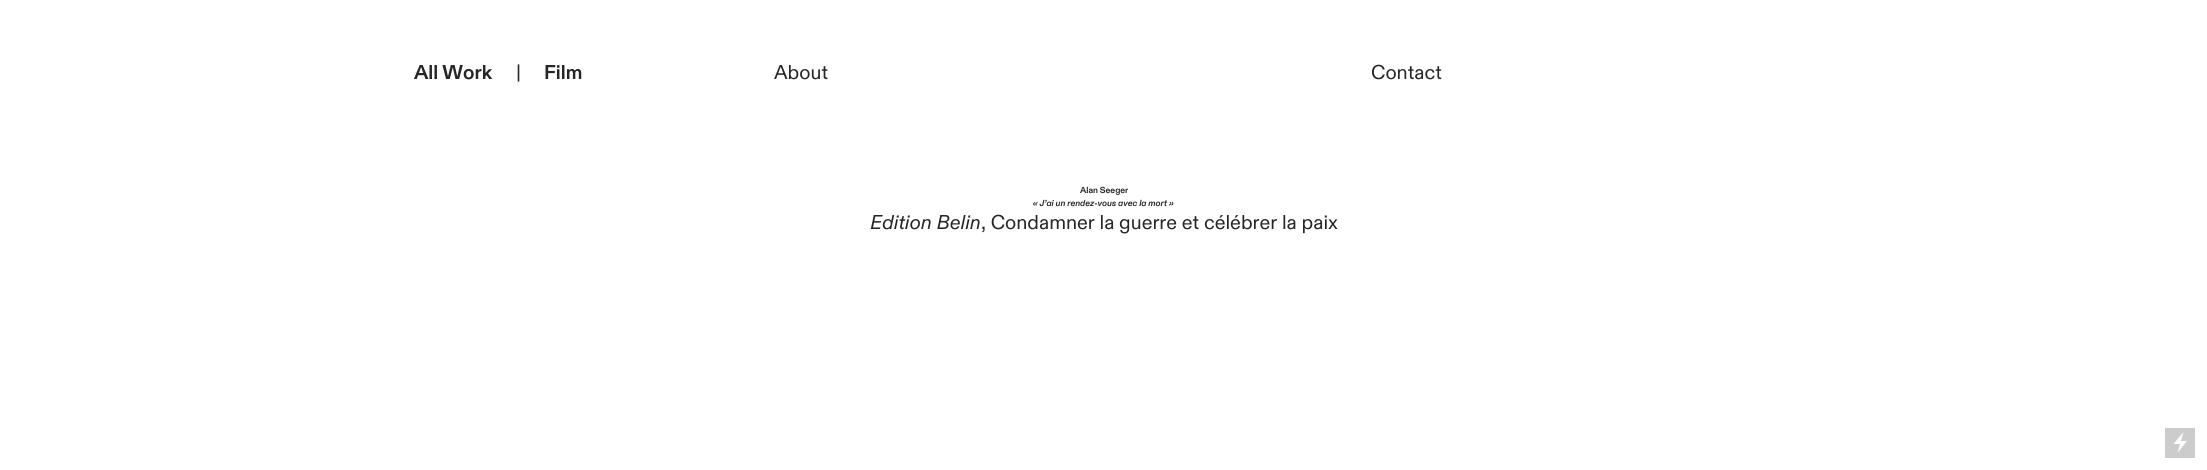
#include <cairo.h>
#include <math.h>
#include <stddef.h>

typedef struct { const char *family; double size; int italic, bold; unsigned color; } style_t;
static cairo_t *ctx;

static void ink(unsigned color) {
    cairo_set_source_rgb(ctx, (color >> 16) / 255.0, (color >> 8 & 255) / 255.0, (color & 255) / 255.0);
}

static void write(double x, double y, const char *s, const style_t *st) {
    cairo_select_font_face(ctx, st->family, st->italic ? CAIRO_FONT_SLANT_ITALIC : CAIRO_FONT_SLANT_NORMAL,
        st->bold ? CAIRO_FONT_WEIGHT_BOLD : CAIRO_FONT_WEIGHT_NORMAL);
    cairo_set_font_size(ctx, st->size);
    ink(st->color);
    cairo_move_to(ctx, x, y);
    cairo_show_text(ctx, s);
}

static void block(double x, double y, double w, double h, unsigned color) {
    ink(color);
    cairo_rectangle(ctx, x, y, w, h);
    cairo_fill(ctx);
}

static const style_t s1 = {"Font", 20, 0, 1, 0x262626};
static const style_t s2 = {"Font", 20, 0, 0, 0x262626};
static const style_t s3 = {"Font", 8.75, 0, 1, 0x262626};
static const style_t s4 = {"Font", 8.75, 1, 1, 0x262626};
static const style_t s5 = {"Font", 20, 1, 0, 0x262626};

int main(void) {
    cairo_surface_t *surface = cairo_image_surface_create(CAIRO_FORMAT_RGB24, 2207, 470);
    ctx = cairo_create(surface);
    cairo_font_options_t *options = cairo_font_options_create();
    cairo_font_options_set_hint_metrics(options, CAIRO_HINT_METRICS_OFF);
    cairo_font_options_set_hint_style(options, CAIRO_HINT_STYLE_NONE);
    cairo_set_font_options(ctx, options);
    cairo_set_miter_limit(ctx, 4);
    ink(0xffffff);
    cairo_paint(ctx);
    write(414, 79, "All Work", &s1);
    write(516, 79, "|", &s2);
    write(544, 79, "Film", &s1);
    write(774, 79, "About", &s2);
    write(1371, 79, "Contact", &s2);
    write(1080, 193, "Alan Seeger", &s3);
    write(1033, 206, "« J’ai un rendez-vous avec la mort »", &s4);
    write(870, 229, "Edition Belin", &s5);
    write(981, 229, ", Condamner la guerre et célébrer la paix", &s2);
    block(2165, 428, 30, 30, 0xcccccc);
    ink(0xffffff);
    cairo_new_path(ctx);
    cairo_move_to(ctx, 2187, 441);
    cairo_line_to(ctx, 2181, 441);
    cairo_line_to(ctx, 2183.5, 432);
    cairo_line_to(ctx, 2173.5, 444);
    cairo_line_to(ctx, 2180, 444);
    cairo_line_to(ctx, 2177.5, 453);
    cairo_close_path(ctx);
    cairo_fill(ctx);
    cairo_surface_write_to_png(surface, "screenshot.png");
    cairo_font_options_destroy(options);
    cairo_destroy(ctx);
    cairo_surface_destroy(surface);
    return 0;
}
